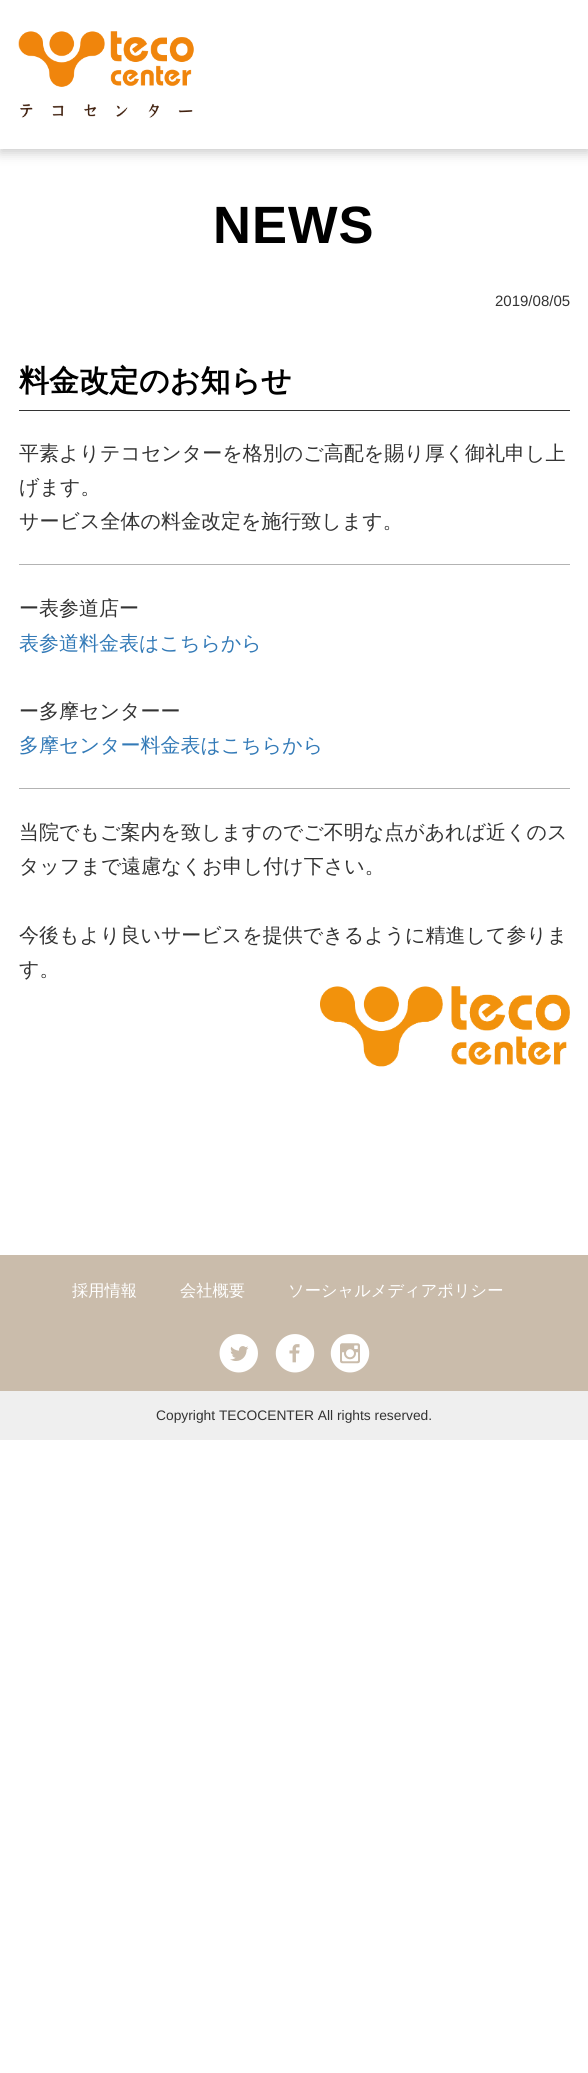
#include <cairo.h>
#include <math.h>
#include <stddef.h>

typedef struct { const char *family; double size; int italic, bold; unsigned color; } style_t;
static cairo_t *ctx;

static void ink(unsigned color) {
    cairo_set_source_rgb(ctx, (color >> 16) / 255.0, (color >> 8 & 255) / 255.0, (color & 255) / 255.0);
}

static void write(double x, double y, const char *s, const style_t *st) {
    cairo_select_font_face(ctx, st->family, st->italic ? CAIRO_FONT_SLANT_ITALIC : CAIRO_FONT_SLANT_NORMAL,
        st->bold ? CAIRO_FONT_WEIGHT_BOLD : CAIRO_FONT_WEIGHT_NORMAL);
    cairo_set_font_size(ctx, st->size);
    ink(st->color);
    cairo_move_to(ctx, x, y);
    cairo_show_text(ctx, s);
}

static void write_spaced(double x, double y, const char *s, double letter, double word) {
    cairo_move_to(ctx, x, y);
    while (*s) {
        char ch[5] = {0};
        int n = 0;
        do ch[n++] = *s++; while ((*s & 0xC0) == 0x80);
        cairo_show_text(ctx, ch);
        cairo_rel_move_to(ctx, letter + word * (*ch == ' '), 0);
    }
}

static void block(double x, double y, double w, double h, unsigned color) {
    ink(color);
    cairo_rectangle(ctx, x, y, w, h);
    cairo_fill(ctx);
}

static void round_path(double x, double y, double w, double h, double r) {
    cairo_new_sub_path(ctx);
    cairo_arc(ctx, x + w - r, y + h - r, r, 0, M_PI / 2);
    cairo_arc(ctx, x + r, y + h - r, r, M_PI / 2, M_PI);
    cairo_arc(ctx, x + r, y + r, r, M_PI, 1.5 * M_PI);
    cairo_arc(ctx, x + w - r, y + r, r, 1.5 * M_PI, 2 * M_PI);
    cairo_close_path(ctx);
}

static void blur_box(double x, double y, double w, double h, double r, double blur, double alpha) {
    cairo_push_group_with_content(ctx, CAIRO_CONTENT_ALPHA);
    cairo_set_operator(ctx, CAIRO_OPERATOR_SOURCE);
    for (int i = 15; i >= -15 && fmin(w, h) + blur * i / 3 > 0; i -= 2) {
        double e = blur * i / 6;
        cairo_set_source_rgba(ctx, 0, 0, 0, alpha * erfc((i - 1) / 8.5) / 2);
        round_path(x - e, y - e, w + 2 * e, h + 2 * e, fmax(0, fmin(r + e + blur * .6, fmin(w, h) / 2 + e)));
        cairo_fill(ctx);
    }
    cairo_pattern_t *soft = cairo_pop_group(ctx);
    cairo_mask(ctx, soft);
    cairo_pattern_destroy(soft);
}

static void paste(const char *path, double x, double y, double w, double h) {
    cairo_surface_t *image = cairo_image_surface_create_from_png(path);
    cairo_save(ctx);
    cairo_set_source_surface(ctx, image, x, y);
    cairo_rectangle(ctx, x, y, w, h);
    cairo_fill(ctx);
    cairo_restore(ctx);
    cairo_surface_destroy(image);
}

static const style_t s1 = {"Liberation Sans", 15, 0, 0, 0x333333};
static const style_t s2 = {"WenQuanYi Zen Hei", 30, 0, 1, 0x000000};
static const style_t s3 = {"WenQuanYi Zen Hei Medium", 20, 0, 0, 0x333333};
static const style_t s4 = {"WenQuanYi Zen Hei Medium", 20, 0, 0, 0x337ab7};
static const style_t s5 = {"WenQuanYi Zen Hei Medium", 16.25, 0, 0, 0xffffff};
static const style_t s6 = {"Liberation Sans", 13.8, 0, 0, 0x333333};

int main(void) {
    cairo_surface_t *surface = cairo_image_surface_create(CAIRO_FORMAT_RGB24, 588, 2073);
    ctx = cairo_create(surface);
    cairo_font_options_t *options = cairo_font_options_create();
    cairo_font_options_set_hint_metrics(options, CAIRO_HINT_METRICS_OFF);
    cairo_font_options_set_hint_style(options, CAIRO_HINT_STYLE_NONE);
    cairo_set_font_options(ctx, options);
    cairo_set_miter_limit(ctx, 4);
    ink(0xffffff);
    cairo_paint(ctx);
    ink(0x000000);
    blur_box(0, 4, 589, 149, 0, 6, 0.2);
    block(0, 0, 588, 149, 0xffffff);
    paste("pic1.png", 18, 31, 176, 87);
    cairo_select_font_face(ctx, "Liberation Sans", CAIRO_FONT_SLANT_NORMAL, CAIRO_FONT_WEIGHT_BOLD);
    cairo_set_font_size(ctx, 52.5);
    ink(0x000000);
    write_spaced(213, 243, "NEWS", 1, 0);
    write(495, 306, "2019/08/05", &s1);
    block(19, 410, 551, 1, 0x333333);
    write(19, 391, "料金改定のお知らせ", &s2);
    write(19, 460, "平素よりテコセンターを格別のご高配を賜り厚く御礼申し上", &s3);
    write(19, 494, "げます。", &s3);
    write(19, 528, "サービス全体の料金改定を施行致します。", &s3);
    block(19, 564, 551, 1, 0xb3b3b3);
    write(19, 615, "ー表参道店ー", &s3);
    write(19, 650, "表参道料金表はこちらから", &s4);
    write(19, 718, "ー多摩センターー", &s3);
    write(19, 752, "多摩センター料金表はこちらから", &s4);
    block(19, 788, 551, 1, 0xb3b3b3);
    write(19, 839, "当院でもご案内を致しますのでご不明な点があれば近くのス", &s3);
    write(19, 873, "タッフまで遠慮なくお申し付け下さい。", &s3);
    write(19, 942, "今後もより良いサービスを提供できるように精進して参りま", &s3);
    write(19, 976, "す。", &s3);
    paste("pic2.png", 320, 986, 250, 81);
    block(0, 1255, 588, 136, 0xcabcab);
    write(72, 1296, "採用情報", &s5);
    write(180, 1296, "会社概要", &s5);
    write(288, 1296, "ソーシャルメディアポリシー", &s5);
    paste("pic3.png", 219, 1334, 39, 39);
    paste("pic4.png", 275, 1334, 40, 39);
    paste("pic5.png", 330, 1334, 40, 39);
    block(0, 1391, 588, 49, 0xefefef);
    write(156, 1420, "Copyright TECOCENTER All rights reserved.", &s6);
    cairo_surface_write_to_png(surface, "screenshot.png");
    cairo_font_options_destroy(options);
    cairo_destroy(ctx);
    cairo_surface_destroy(surface);
    return 0;
}
